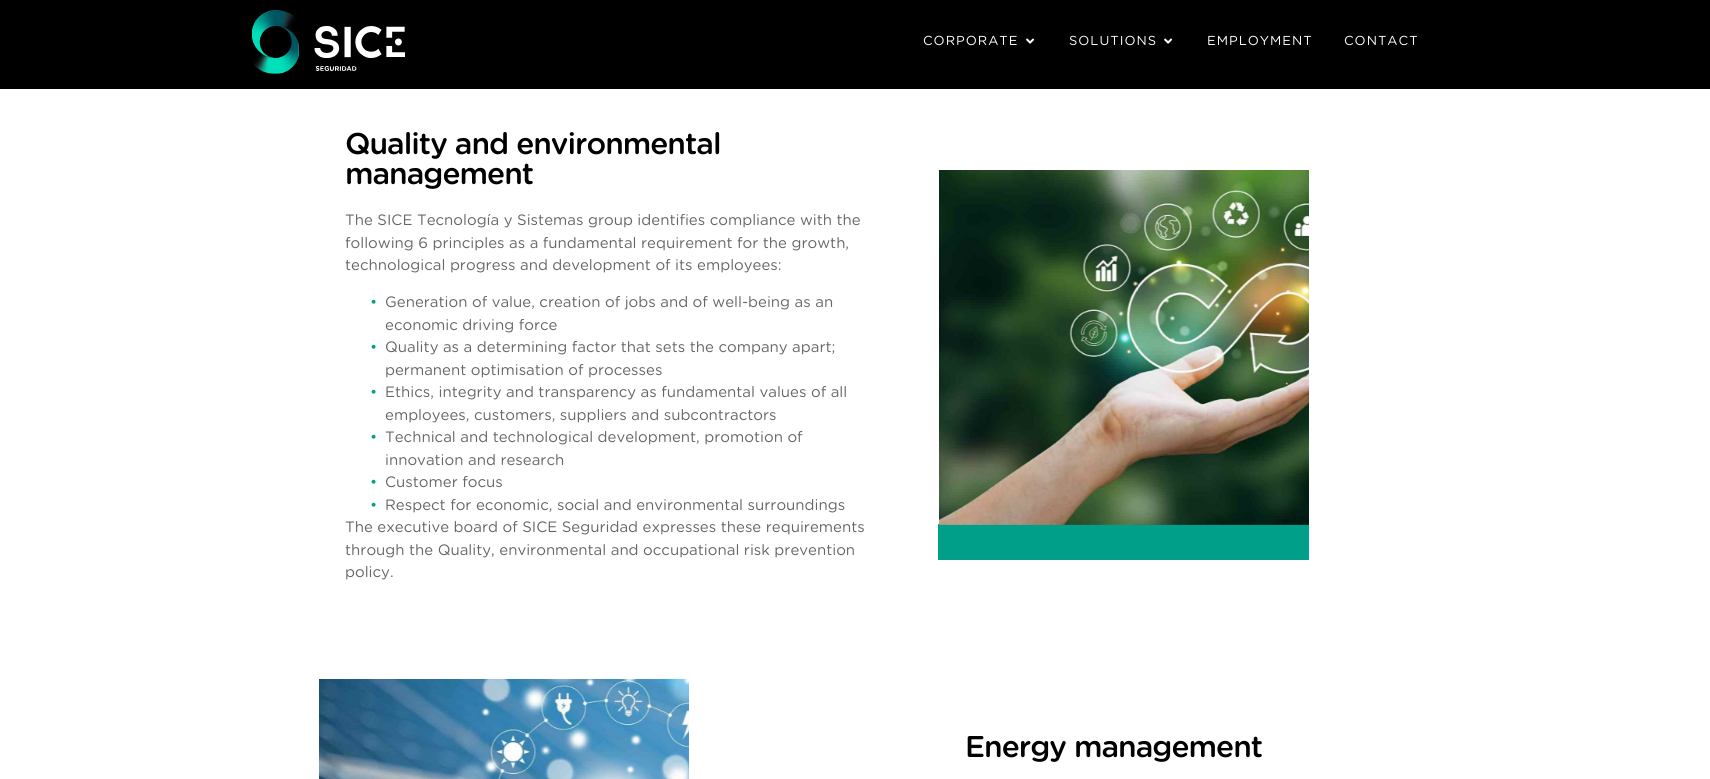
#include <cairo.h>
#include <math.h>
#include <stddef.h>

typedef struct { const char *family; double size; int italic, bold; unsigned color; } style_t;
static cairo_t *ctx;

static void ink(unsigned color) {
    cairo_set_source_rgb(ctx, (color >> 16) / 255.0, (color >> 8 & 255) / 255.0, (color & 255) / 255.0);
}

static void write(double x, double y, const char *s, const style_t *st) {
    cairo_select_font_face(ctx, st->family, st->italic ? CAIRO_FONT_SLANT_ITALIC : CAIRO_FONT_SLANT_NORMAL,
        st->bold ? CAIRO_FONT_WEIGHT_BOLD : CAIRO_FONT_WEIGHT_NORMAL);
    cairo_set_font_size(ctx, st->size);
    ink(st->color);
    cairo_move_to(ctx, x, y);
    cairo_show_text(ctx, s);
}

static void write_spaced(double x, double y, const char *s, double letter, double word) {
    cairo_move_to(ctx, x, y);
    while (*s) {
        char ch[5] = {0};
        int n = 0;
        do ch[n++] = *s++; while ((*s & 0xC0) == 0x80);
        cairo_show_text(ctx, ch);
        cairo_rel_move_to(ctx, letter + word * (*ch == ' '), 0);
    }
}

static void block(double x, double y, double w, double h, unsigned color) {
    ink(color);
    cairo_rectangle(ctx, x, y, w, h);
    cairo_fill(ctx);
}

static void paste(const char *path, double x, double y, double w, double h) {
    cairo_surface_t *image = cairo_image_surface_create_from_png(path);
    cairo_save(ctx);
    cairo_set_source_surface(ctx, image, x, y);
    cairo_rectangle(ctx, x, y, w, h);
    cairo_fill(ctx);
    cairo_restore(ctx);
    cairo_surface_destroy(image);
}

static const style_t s1 = {"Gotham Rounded", 15, 0, 0, 0x666666};
static const style_t s2 = {"Gotham Rounded", 15, 0, 0, 0x009f89};

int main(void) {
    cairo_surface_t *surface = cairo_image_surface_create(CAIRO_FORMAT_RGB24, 1710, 779);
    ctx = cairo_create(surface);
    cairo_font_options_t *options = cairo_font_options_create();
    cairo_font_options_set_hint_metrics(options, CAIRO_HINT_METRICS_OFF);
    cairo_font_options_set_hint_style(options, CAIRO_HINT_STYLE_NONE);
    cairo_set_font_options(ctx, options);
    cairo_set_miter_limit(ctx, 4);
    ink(0xffffff);
    cairo_paint(ctx);
    block(0, 0, 1710, 89, 0x000000);
    paste("pic1.png", 252, 10, 153, 64);
    cairo_select_font_face(ctx, "Gotham Rounded", CAIRO_FONT_SLANT_NORMAL, CAIRO_FONT_WEIGHT_NORMAL);
    cairo_set_font_size(ctx, 13);
    ink(0xffffff);
    write_spaced(923, 45, "CORPORATE", 1, 0);
    paste("pic2.png", 1026, 38, 9, 6);
    write_spaced(1069, 45, "SOLUTIONS", 1, 0);
    paste("pic2.png", 1164, 38, 9, 6);
    write_spaced(1207, 45, "EMPLOYMENT", 1, 0);
    write_spaced(1344, 45, "CONTACT", 1, 0);
    cairo_select_font_face(ctx, "Gotham Rounded Medium", CAIRO_FONT_SLANT_NORMAL, CAIRO_FONT_WEIGHT_NORMAL);
    cairo_set_font_size(ctx, 30);
    ink(0x000000);
    write_spaced(345, 154, "Quality and environmental", -1, 0);
    write_spaced(345, 184, "management", -1, 0);
    write(345, 225, "The SICE Tecnología y Sistemas group identifies compliance with the", &s1);
    write(345, 248, "following 6 principles as a fundamental requirement for the growth,", &s1);
    write(345, 270, "technological progress and development of its employees:", &s1);
    write(370, 307, "•", &s2);
    write(385, 307, "Generation of value, creation of jobs and of well-being as an", &s1);
    write(385, 330, "economic driving force", &s1);
    write(370, 352, "•", &s2);
    write(385, 352, "Quality as a determining factor that sets the company apart;", &s1);
    write(385, 375, "permanent optimisation of processes", &s1);
    write(370, 397, "•", &s2);
    write(385, 397, "Ethics, integrity and transparency as fundamental values of all", &s1);
    write(385, 420, "employees, customers, suppliers and subcontractors", &s1);
    write(370, 442, "•", &s2);
    write(385, 442, "Technical and technological development, promotion of", &s1);
    write(385, 465, "innovation and research", &s1);
    write(370, 487, "•", &s2);
    write(385, 487, "Customer focus", &s1);
    write(370, 510, "•", &s2);
    write(385, 510, "Respect for economic, social and environmental surroundings", &s1);
    write(345, 532, "The executive board of SICE Seguridad expresses these requirements", &s1);
    write(345, 555, "through the Quality, environmental and occupational risk prevention", &s1);
    write(345, 577, "policy.", &s1);
    block(938, 524, 371, 36, 0x009f89);
    paste("pic3.png", 939, 170, 370, 355);
    paste("pic4.png", 319, 679, 370, 100);
    cairo_select_font_face(ctx, "Gotham Rounded Medium", CAIRO_FONT_SLANT_NORMAL, CAIRO_FONT_WEIGHT_NORMAL);
    cairo_set_font_size(ctx, 30);
    ink(0x000000);
    write_spaced(965, 757, "Energy management", -1, 0);
    cairo_surface_write_to_png(surface, "screenshot.png");
    cairo_font_options_destroy(options);
    cairo_destroy(ctx);
    cairo_surface_destroy(surface);
    return 0;
}
